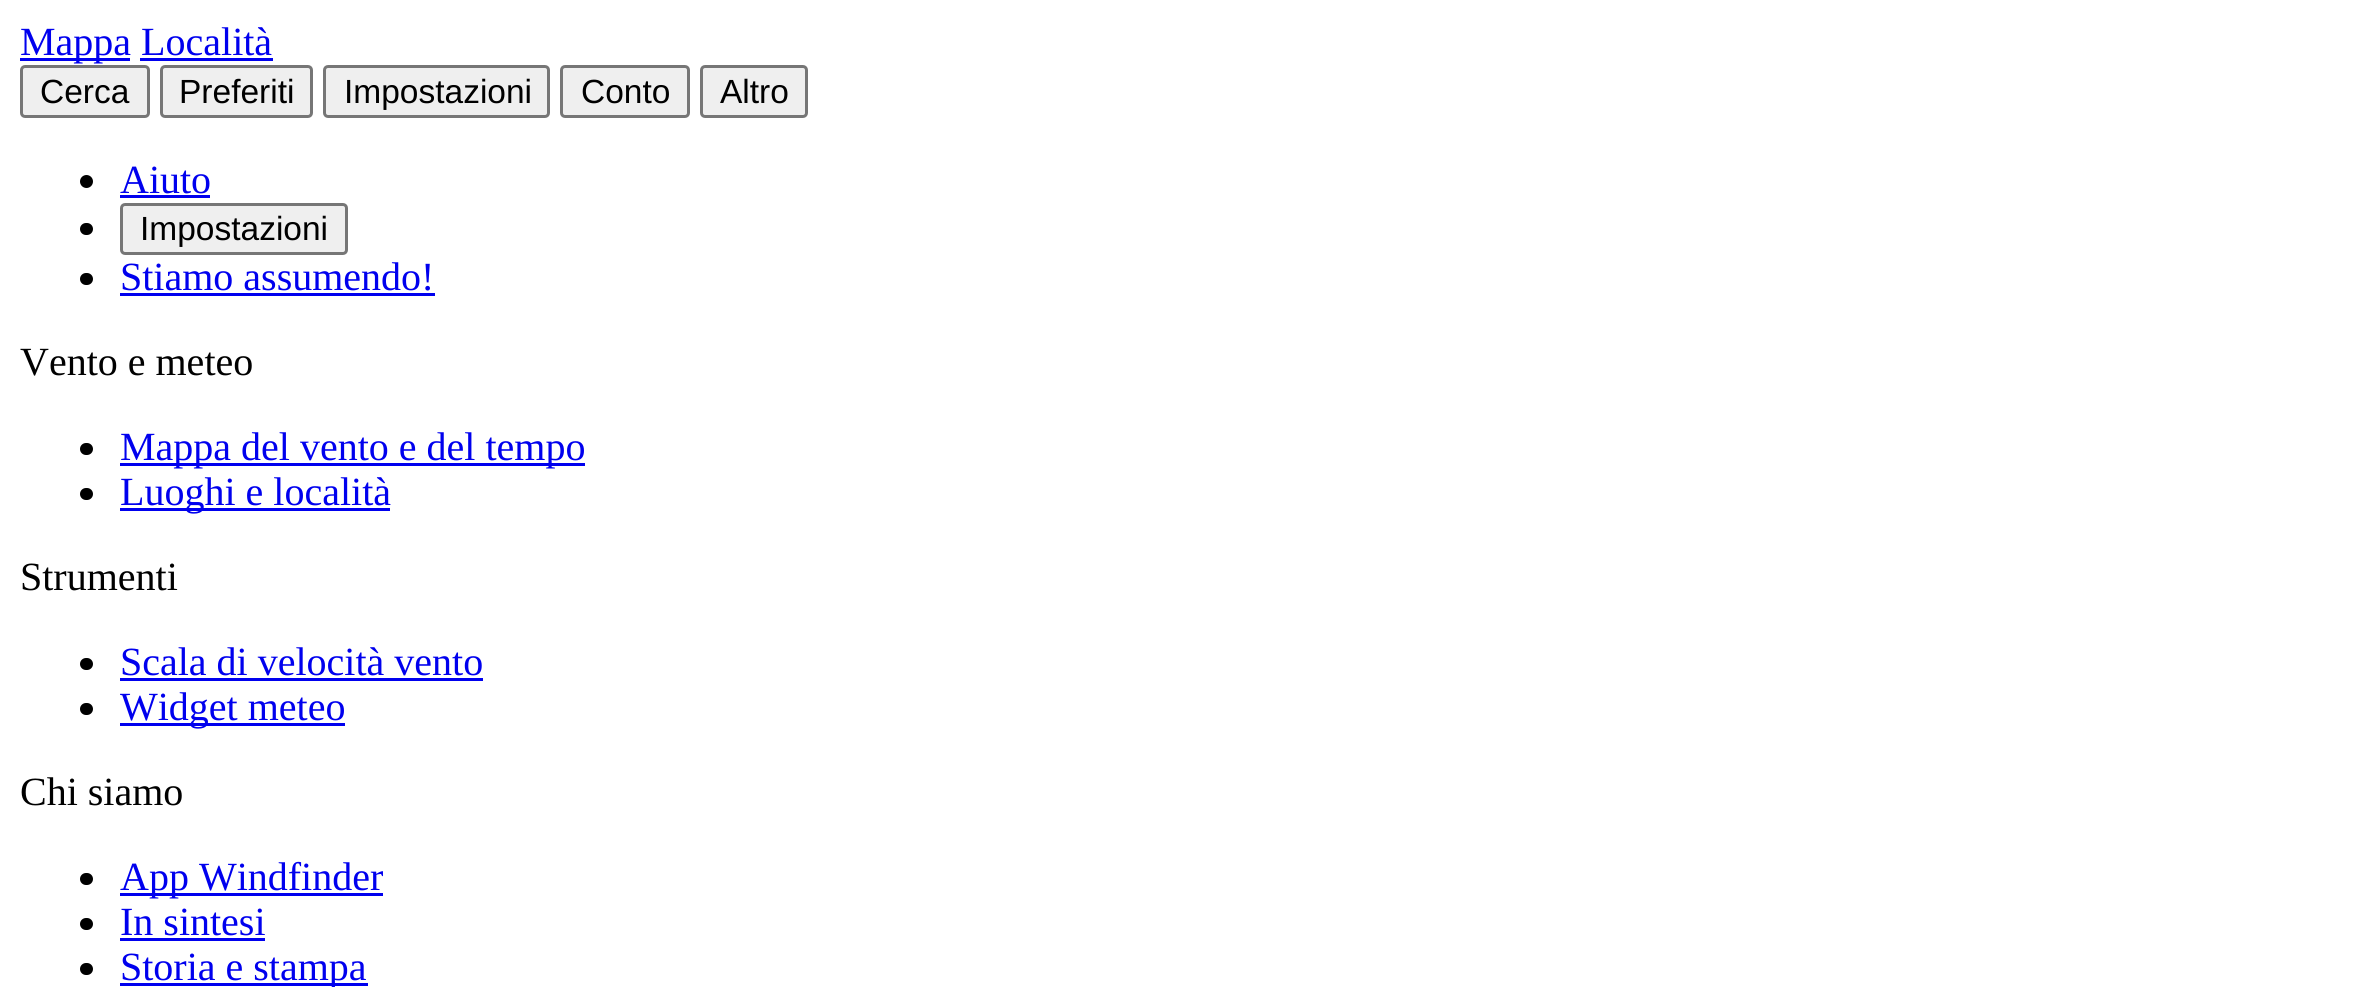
#include <cairo.h>
#include <math.h>
#include <stddef.h>

typedef struct { const char *family; double size; int italic, bold; unsigned color; } style_t;
static cairo_t *ctx;

static void ink(unsigned color) {
    cairo_set_source_rgb(ctx, (color >> 16) / 255.0, (color >> 8 & 255) / 255.0, (color & 255) / 255.0);
}

static void write(double x, double y, const char *s, const style_t *st) {
    cairo_select_font_face(ctx, st->family, st->italic ? CAIRO_FONT_SLANT_ITALIC : CAIRO_FONT_SLANT_NORMAL,
        st->bold ? CAIRO_FONT_WEIGHT_BOLD : CAIRO_FONT_WEIGHT_NORMAL);
    cairo_set_font_size(ctx, st->size);
    ink(st->color);
    cairo_move_to(ctx, x, y);
    cairo_show_text(ctx, s);
}

static void block(double x, double y, double w, double h, unsigned color) {
    ink(color);
    cairo_rectangle(ctx, x, y, w, h);
    cairo_fill(ctx);
}

static void round_path(double x, double y, double w, double h, double r) {
    cairo_new_sub_path(ctx);
    cairo_arc(ctx, x + w - r, y + h - r, r, 0, M_PI / 2);
    cairo_arc(ctx, x + r, y + h - r, r, M_PI / 2, M_PI);
    cairo_arc(ctx, x + r, y + r, r, M_PI, 1.5 * M_PI);
    cairo_arc(ctx, x + w - r, y + r, r, 1.5 * M_PI, 2 * M_PI);
    cairo_close_path(ctx);
}

static const style_t s1 = {"Liberation Serif", 40, 0, 0, 0x0000ee};
static const style_t s2 = {"Liberation Sans", 33.5, 0, 0, 0x000000};
static const style_t s3 = {"Liberation Serif", 40, 0, 0, 0x000000};

int main(void) {
    cairo_surface_t *surface = cairo_image_surface_create(CAIRO_FORMAT_RGB24, 2368, 987);
    ctx = cairo_create(surface);
    cairo_font_options_t *options = cairo_font_options_create();
    cairo_font_options_set_hint_metrics(options, CAIRO_HINT_METRICS_OFF);
    cairo_font_options_set_hint_style(options, CAIRO_HINT_STYLE_NONE);
    cairo_set_font_options(ctx, options);
    cairo_set_miter_limit(ctx, 4);
    ink(0xffffff);
    cairo_paint(ctx);
    block(20, 58, 110, 3, 0x0000ee);
    write(20, 55, "Mappa Località", &s1);
    block(140, 58, 133, 3, 0x0000ee);
    ink(0xefefef);
    round_path(21.5, 66.5, 127, 50, 3.5);
    cairo_fill_preserve(ctx);
    ink(0x767676);
    cairo_set_line_width(ctx, 3);
    cairo_stroke(ctx);
    write(40, 103, "Cerca", &s2);
    ink(0xefefef);
    round_path(161.5, 66.5, 150, 50, 3.5);
    cairo_fill_preserve(ctx);
    ink(0x767676);
    cairo_stroke(ctx);
    write(179, 103, "Preferiti", &s2);
    ink(0xefefef);
    round_path(324.5, 66.5, 224, 50, 3.5);
    cairo_fill_preserve(ctx);
    ink(0x767676);
    cairo_stroke(ctx);
    write(344, 103, "Impostazioni", &s2);
    ink(0xefefef);
    round_path(561.5, 66.5, 127, 50, 3.5);
    cairo_fill_preserve(ctx);
    ink(0x767676);
    cairo_stroke(ctx);
    write(581, 103, "Conto", &s2);
    ink(0xefefef);
    round_path(701.5, 66.5, 105, 50, 3.5);
    cairo_fill_preserve(ctx);
    ink(0x767676);
    cairo_stroke(ctx);
    write(720, 103, "Altro", &s2);
    cairo_new_path(ctx);
    cairo_arc(ctx, 86.5, 181.5, 6.5, 0, 2 * M_PI);
    cairo_fill(ctx);
    write(120, 193, "Aiuto", &s1);
    block(120, 195, 90, 3, 0x0000ee);
    ink(0x000000);
    round_path(80, 223, 13, 12, 6);
    cairo_fill(ctx);
    ink(0xefefef);
    round_path(121.5, 204.5, 225, 49, 3.5);
    cairo_fill_preserve(ctx);
    ink(0x767676);
    cairo_stroke(ctx);
    write(140, 240, "Impostazioni", &s2);
    round_path(80, 273, 13, 12, 6);
    cairo_fill(ctx);
    write(120, 290, "Stiamo assumendo!", &s1);
    block(120, 293, 315, 3, 0x0000ee);
    write(20, 375, "Vento e meteo", &s3);
    round_path(80, 443, 13, 12, 6);
    cairo_fill(ctx);
    block(120, 463, 465, 3, 0x0000ee);
    write(120, 460, "Mappa del vento e del tempo", &s1);
    ink(0x000000);
    round_path(80, 488, 13, 12, 6);
    cairo_fill(ctx);
    block(120, 508, 270, 3, 0x0000ee);
    write(120, 505, "Luoghi e località", &s1);
    write(20, 590, "Strumenti", &s3);
    round_path(80, 658, 13, 12, 6);
    cairo_fill(ctx);
    write(120, 675, "Scala di velocità vento", &s1);
    block(120, 678, 363, 3, 0x0000ee);
    ink(0x000000);
    round_path(80, 703, 13, 12, 6);
    cairo_fill(ctx);
    block(120, 723, 225, 3, 0x0000ee);
    write(120, 720, "Widget meteo", &s1);
    write(20, 805, "Chi siamo", &s3);
    round_path(80, 873, 13, 12, 6);
    cairo_fill(ctx);
    block(120, 893, 263, 3, 0x0000ee);
    write(120, 890, "App Windfinder", &s1);
    ink(0x000000);
    round_path(80, 918, 13, 12, 6);
    cairo_fill(ctx);
    write(120, 935, "In sintesi", &s1);
    block(120, 938, 145, 3, 0x0000ee);
    ink(0x000000);
    round_path(80, 963, 13, 12, 6);
    cairo_fill(ctx);
    block(120, 983, 248, 3, 0x0000ee);
    write(120, 980, "Storia e stampa", &s1);
    cairo_surface_write_to_png(surface, "screenshot.png");
    cairo_font_options_destroy(options);
    cairo_destroy(ctx);
    cairo_surface_destroy(surface);
    return 0;
}
